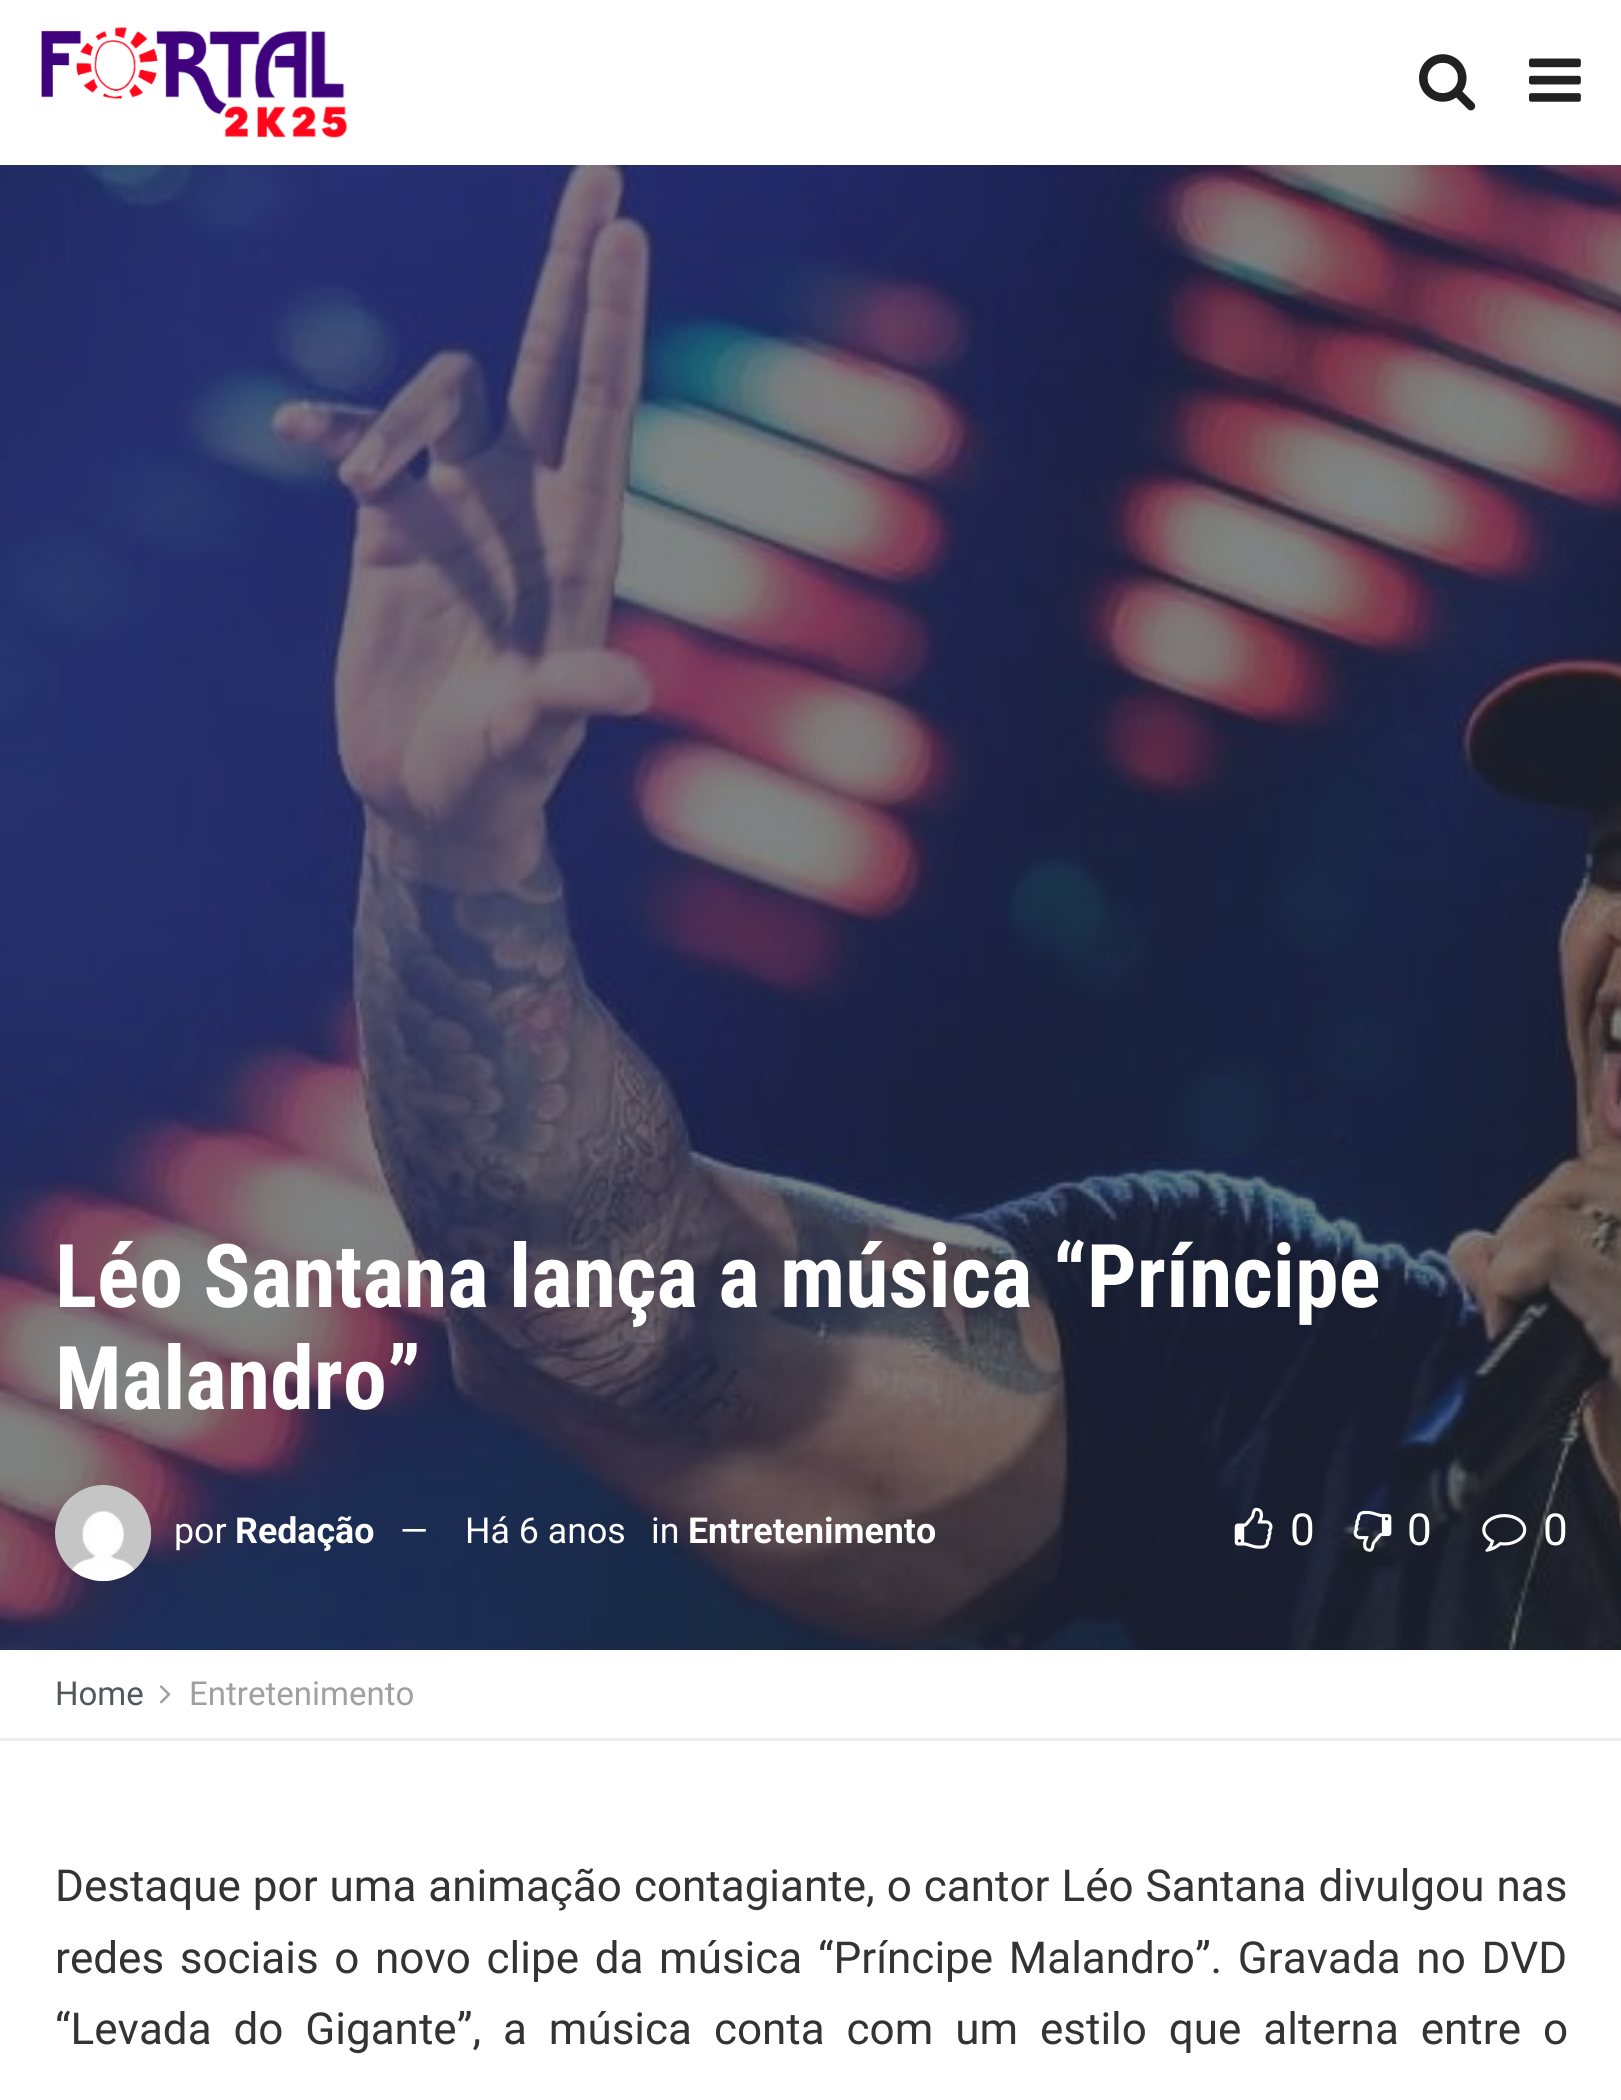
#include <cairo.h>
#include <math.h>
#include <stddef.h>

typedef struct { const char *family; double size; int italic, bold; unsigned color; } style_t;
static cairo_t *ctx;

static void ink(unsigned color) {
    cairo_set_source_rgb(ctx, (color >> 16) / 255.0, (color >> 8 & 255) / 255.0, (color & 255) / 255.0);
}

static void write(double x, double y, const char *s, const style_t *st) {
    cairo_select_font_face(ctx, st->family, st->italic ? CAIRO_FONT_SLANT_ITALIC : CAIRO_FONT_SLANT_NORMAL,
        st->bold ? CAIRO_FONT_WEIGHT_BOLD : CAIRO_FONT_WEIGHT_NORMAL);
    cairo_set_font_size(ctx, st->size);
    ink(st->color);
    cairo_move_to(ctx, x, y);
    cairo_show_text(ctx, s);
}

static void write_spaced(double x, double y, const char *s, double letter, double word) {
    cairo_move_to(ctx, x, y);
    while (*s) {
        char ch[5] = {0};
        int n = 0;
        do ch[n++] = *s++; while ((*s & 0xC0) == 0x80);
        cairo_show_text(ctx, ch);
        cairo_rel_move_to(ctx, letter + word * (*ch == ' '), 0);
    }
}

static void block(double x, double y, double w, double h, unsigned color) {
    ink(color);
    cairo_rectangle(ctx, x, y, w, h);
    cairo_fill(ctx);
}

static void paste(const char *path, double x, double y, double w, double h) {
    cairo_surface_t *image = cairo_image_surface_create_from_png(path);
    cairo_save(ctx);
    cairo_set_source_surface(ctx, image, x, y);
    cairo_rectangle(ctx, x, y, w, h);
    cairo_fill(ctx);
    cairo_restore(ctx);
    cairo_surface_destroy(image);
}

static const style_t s1 = {"Roboto Condensed", 88, 0, 1, 0xffffff};
static const style_t s2 = {"Roboto", 35.75, 0, 0, 0xffffff};
static const style_t s3 = {"Roboto", 35.75, 0, 1, 0xffffff};
static const style_t s4 = {"Roboto", 44, 0, 0, 0xffffff};
static const style_t s5 = {"Roboto", 33, 0, 0, 0x53585c};
static const style_t s6 = {"Roboto", 33, 0, 0, 0xa0a0a0};

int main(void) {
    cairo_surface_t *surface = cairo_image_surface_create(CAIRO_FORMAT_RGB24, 1621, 2100);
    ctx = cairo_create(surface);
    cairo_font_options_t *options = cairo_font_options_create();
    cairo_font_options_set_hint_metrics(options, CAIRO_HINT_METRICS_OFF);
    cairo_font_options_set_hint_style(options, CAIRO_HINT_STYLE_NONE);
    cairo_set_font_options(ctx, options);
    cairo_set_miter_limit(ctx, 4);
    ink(0xffffff);
    cairo_paint(ctx);
    paste("pic1.png", 41, 27, 306, 111);
    paste("pic2.png", 1419, 54, 57, 57);
    paste("pic3.png", 1529, 58, 52, 44);
    block(0, 165, 1621, 1485, 0x293132);
    paste("pic4.png", 0, 165, 1621, 1485);
    write(55, 1307, "Léo Santana lança a música “Príncipe", &s1);
    write(55, 1409, "Malandro”", &s1);
    paste("pic5.png", 55, 1485, 97, 97);
    write(174, 1543, "por", &s2);
    write(235, 1543, "Redação", &s3);
    write(400, 1543, "—", &s2);
    write(465, 1543, "Há 6 anos", &s2);
    write(651, 1543, "in", &s2);
    write(688, 1543, "Entretenimento", &s3);
    paste("pic6.png", 1234, 1507, 39, 42);
    write(1290, 1545, "0", &s4);
    paste("pic7.png", 1353, 1510, 39, 42);
    write(1407, 1545, "0", &s4);
    paste("pic8.png", 1482, 1514, 45, 38);
    write(1543, 1545, "0", &s4);
    block(0, 1738, 1621, 3, 0xeeeeee);
    write(55, 1705, "Home", &s5);
    paste("pic9.png", 159, 1685, 12, 19);
    write(189, 1705, "Entretenimento", &s6);
    cairo_set_font_size(ctx, 44);
    ink(0x333333);
    write_spaced(55, 1901, "Destaque por uma animação contagiante, o cantor Léo Santana divulgou nas", 0, 1.1);
    write_spaced(55, 1973, "redes sociais o novo clipe da música “Príncipe Malandro”. Gravada no DVD", 0, 4.75);
    write_spaced(55, 2044, "“Levada do Gigante”, a música conta com um estilo que alterna entre o", 0, 11);
    cairo_surface_write_to_png(surface, "screenshot.png");
    cairo_font_options_destroy(options);
    cairo_destroy(ctx);
    cairo_surface_destroy(surface);
    return 0;
}
